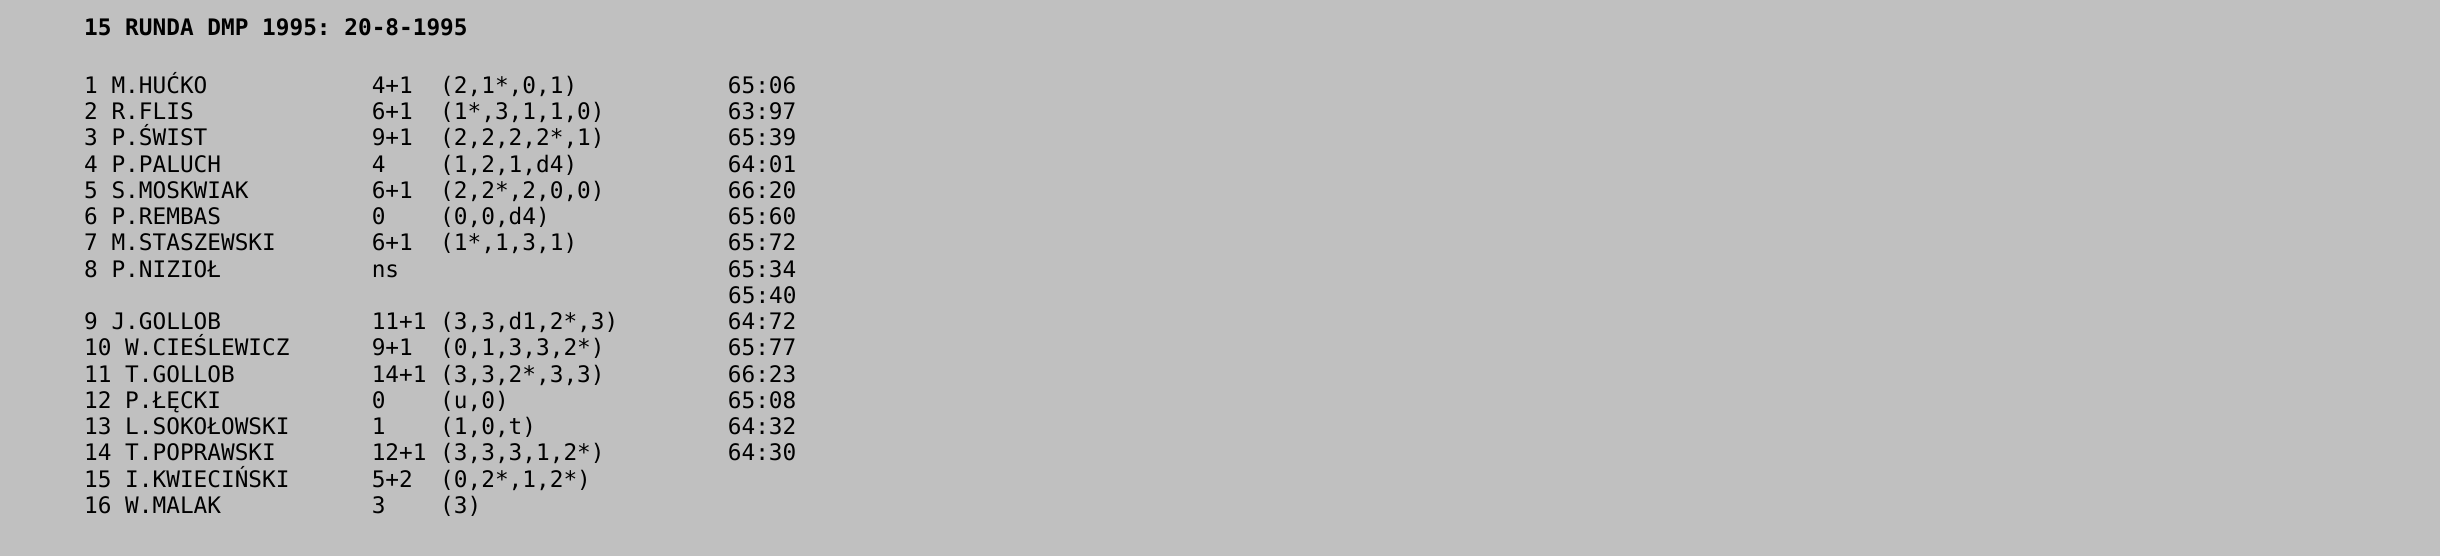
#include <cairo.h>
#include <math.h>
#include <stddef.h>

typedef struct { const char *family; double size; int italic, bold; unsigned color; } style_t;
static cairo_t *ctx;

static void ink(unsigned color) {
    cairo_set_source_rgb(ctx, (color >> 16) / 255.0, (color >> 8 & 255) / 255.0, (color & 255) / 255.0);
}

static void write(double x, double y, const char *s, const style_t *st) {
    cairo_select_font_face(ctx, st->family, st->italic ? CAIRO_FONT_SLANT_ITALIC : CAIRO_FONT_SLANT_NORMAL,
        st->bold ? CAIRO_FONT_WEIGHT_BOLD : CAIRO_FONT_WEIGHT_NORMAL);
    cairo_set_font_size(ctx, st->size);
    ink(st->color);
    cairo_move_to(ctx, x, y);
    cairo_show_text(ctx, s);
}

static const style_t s1 = {"DejaVu Sans Mono", 22.75, 0, 1, 0x000000};
static const style_t s2 = {"DejaVu Sans Mono", 22.75, 0, 0, 0x000000};

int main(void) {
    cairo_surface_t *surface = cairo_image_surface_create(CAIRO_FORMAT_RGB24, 2440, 556);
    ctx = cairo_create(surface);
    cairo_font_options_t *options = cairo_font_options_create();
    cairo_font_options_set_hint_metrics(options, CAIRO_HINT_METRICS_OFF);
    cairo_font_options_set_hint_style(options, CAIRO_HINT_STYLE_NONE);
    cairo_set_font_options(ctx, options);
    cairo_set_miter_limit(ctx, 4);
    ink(0xc0c0c0);
    cairo_paint(ctx);
    write(84, 35, "15 RUNDA DMP 1995: 20-8-1995", &s1);
    write(84, 93, "1 M.HUĆKO            4+1  (2,1*,0,1)           65:06", &s2);
    write(84, 119, "2 R.FLIS             6+1  (1*,3,1,1,0)         63:97", &s2);
    write(84, 145, "3 P.ŚWIST            9+1  (2,2,2,2*,1)         65:39", &s2);
    write(84, 172, "4 P.PALUCH           4    (1,2,1,d4)           64:01", &s2);
    write(84, 198, "5 S.MOSKWIAK         6+1  (2,2*,2,0,0)         66:20", &s2);
    write(84, 224, "6 P.REMBAS           0    (0,0,d4)             65:60", &s2);
    write(84, 250, "7 M.STASZEWSKI       6+1  (1*,1,3,1)           65:72", &s2);
    write(84, 277, "8 P.NIZIOŁ           ns                        65:34", &s2);
    write(728, 303, "65:40", &s2);
    write(84, 329, "9 J.GOLLOB           11+1 (3,3,d1,2*,3)        64:72", &s2);
    write(84, 355, "10 W.CIEŚLEWICZ      9+1  (0,1,3,3,2*)         65:77", &s2);
    write(84, 382, "11 T.GOLLOB          14+1 (3,3,2*,3,3)         66:23", &s2);
    write(84, 408, "12 P.ŁĘCKI           0    (u,0)                65:08", &s2);
    write(84, 434, "13 L.SOKOŁOWSKI      1    (1,0,t)              64:32", &s2);
    write(84, 460, "14 T.POPRAWSKI       12+1 (3,3,3,1,2*)         64:30", &s2);
    write(84, 487, "15 I.KWIECIŃSKI      5+2  (0,2*,1,2*)", &s2);
    write(84, 513, "16 W.MALAK           3    (3)", &s2);
    cairo_surface_write_to_png(surface, "screenshot.png");
    cairo_font_options_destroy(options);
    cairo_destroy(ctx);
    cairo_surface_destroy(surface);
    return 0;
}
